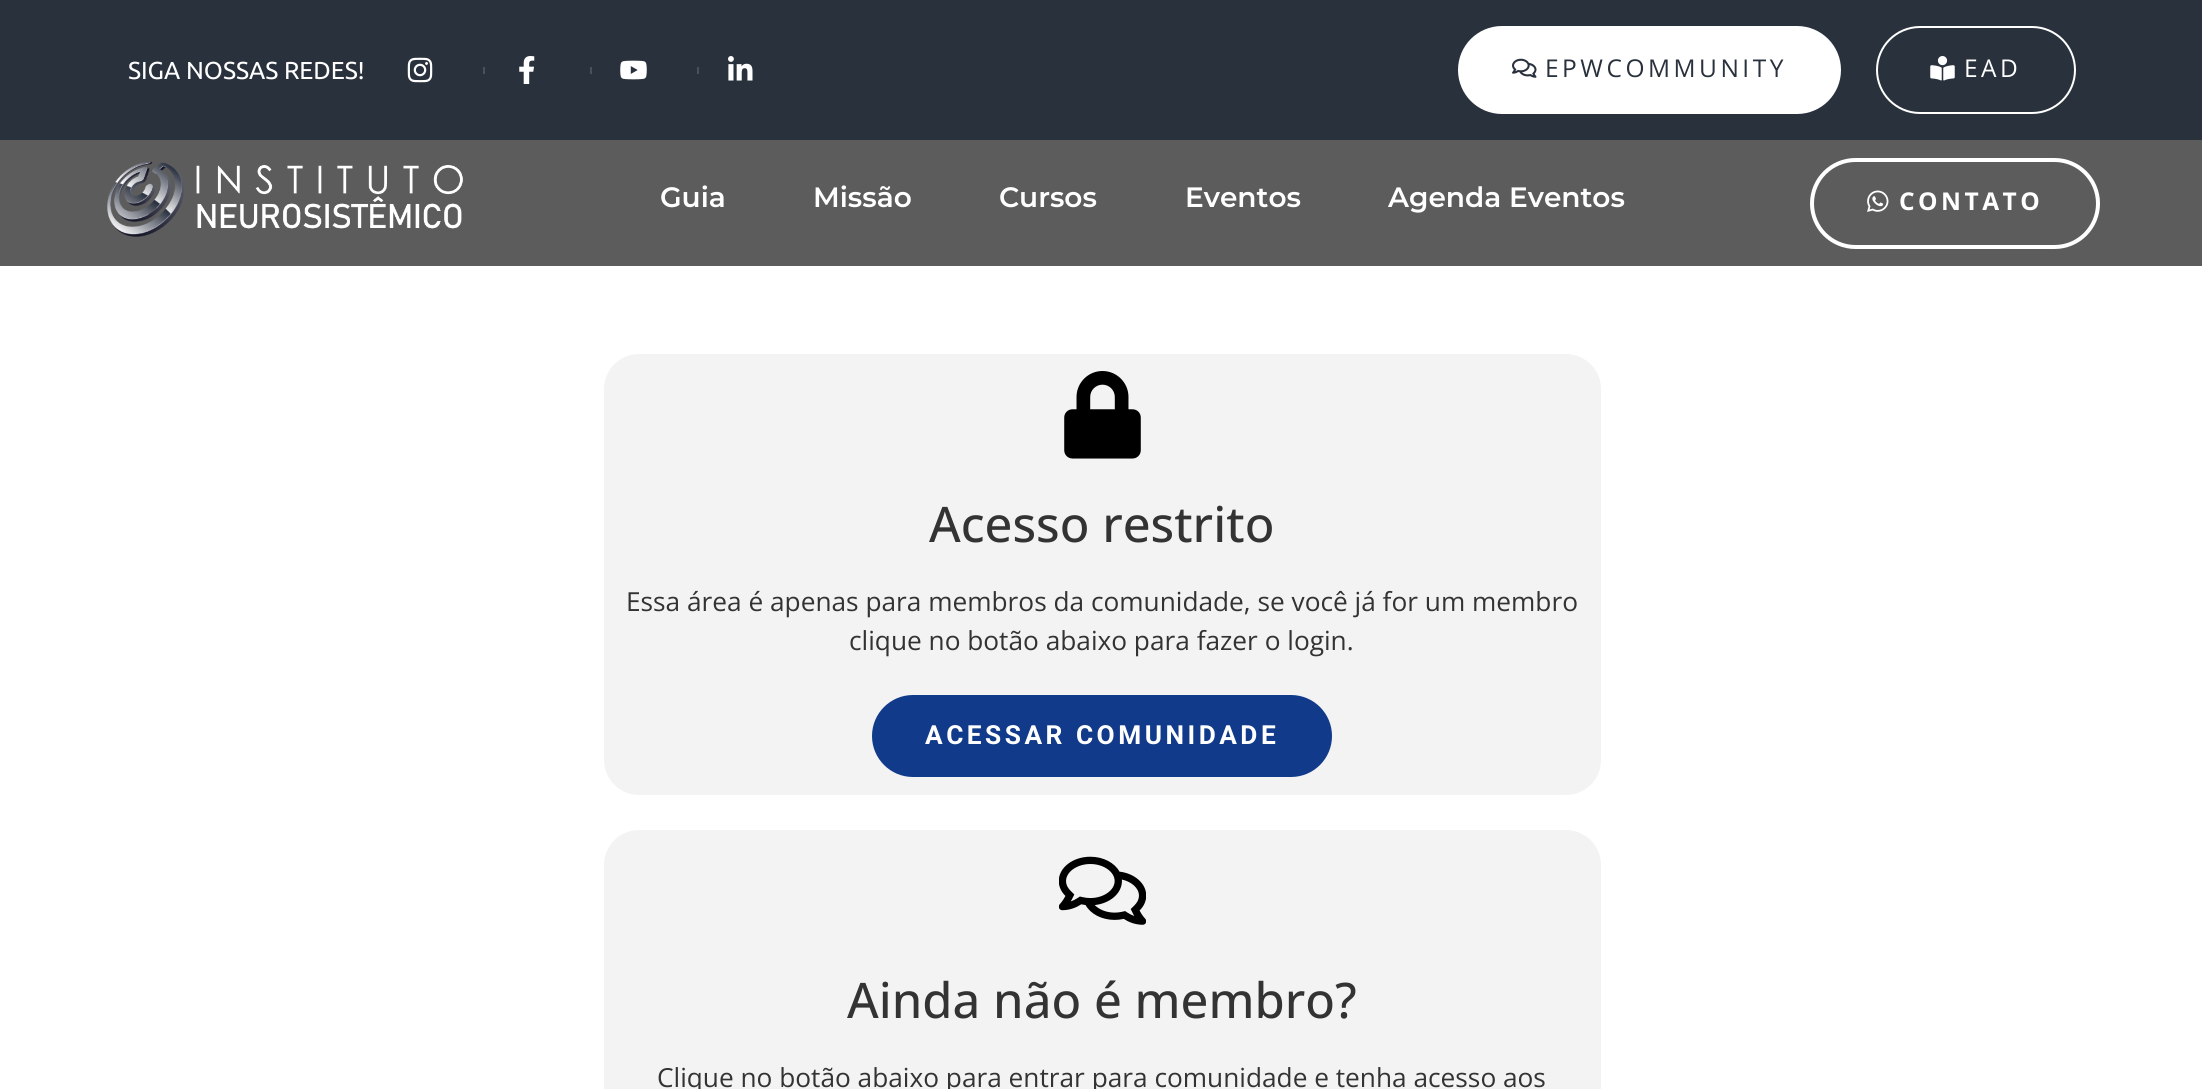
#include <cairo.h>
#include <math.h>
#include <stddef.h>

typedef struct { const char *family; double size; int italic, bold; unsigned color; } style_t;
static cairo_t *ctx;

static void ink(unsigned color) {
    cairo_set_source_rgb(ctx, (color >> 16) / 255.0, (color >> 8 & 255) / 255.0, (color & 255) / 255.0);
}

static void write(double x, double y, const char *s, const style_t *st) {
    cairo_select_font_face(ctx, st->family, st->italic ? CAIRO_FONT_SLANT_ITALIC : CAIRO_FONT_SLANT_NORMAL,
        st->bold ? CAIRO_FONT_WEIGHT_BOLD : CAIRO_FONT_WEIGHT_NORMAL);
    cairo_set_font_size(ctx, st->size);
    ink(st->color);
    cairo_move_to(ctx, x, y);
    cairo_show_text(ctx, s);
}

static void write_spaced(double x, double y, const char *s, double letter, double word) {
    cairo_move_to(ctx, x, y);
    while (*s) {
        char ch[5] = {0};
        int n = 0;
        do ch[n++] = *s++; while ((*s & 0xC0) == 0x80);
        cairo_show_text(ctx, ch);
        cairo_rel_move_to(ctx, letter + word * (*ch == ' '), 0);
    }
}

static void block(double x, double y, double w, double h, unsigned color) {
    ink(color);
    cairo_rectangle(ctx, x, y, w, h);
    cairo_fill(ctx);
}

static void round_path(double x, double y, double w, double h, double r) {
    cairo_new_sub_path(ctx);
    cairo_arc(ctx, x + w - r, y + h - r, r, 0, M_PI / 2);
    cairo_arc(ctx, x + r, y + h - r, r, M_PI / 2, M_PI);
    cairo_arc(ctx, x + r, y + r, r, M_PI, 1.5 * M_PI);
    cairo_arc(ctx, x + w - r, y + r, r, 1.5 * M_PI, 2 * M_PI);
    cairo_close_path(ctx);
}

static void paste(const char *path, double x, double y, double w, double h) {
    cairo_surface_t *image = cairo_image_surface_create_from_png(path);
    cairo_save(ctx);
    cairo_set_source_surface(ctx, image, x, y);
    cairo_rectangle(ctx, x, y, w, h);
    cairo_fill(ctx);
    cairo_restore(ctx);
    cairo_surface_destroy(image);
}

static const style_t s1 = {"Ubuntu", 24.5, 0, 0, 0xffffff};
static const style_t s2 = {"Montserrat SemiBold", 28, 0, 0, 0xffffff};
static const style_t s3 = {"Open Sans Medium", 49, 0, 0, 0x333333};
static const style_t s4 = {"Open Sans", 26.25, 0, 0, 0x333333};

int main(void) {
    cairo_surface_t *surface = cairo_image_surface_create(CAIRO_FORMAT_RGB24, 2202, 1089);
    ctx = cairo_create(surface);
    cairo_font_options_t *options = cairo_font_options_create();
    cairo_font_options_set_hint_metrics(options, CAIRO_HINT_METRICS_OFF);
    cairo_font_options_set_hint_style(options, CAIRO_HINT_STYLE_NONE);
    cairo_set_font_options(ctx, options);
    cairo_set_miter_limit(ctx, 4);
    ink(0xffffff);
    cairo_paint(ctx);
    block(0, 0, 2202, 140, 0x29313c);
    write(128, 79, "SIGA NOSSAS REDES!", &s1);
    paste("pic1.png", 407, 57, 26, 26);
    block(483, 67, 2, 7, 0x4b5058);
    paste("pic2.png", 519, 56, 16, 28);
    block(590, 67, 2, 7, 0x4b5058);
    paste("pic3.png", 620, 60, 27, 20);
    block(697, 67, 2, 7, 0x4b5058);
    paste("pic4.png", 728, 56, 25, 25);
    ink(0xffffff);
    round_path(1459, 27, 381, 86, 43);
    cairo_fill_preserve(ctx);
    cairo_stroke(ctx);
    paste("pic5.png", 1512, 58, 25, 20);
    cairo_select_font_face(ctx, "Open Sans", CAIRO_FONT_SLANT_NORMAL, CAIRO_FONT_WEIGHT_NORMAL);
    ink(0x29313c);
    write_spaced(1545, 77, "EPWCOMMUNITY", 3.5, 0);
    round_path(1877, 27, 198, 86, 43);
    ink(0xffffff);
    cairo_stroke(ctx);
    paste("pic6.png", 1930, 56, 25, 25);
    write_spaced(1964, 77, "EAD", 3.5, 0);
    block(0, 140, 2202, 126, 0x5c5c5c);
    paste("pic7.png", 107, 161, 356, 76);
    write(660, 207, "Guia", &s2);
    write(813, 207, "Missão", &s2);
    write(999, 207, "Cursos", &s2);
    write(1185, 207, "Eventos", &s2);
    write(1388, 207, "Agenda Eventos", &s2);
    round_path(1812, 160, 286, 87, 43.5);
    cairo_set_line_width(ctx, 4);
    cairo_stroke(ctx);
    paste("pic8.png", 1867, 190, 22, 22);
    cairo_select_font_face(ctx, "Open Sans", CAIRO_FONT_SLANT_NORMAL, CAIRO_FONT_WEIGHT_BOLD);
    cairo_set_font_size(ctx, 24.5);
    write_spaced(1899, 210, "CONTATO", 3.5, 0);
    ink(0xf3f3f3);
    round_path(604, 354, 997, 441, 35);
    cairo_fill(ctx);
    paste("pic9.png", 1064, 371, 77, 88);
    write(929, 542, "Acesso restrito", &s3);
    write(626, 611, "Essa área é apenas para membros da comunidade, se você já for um membro", &s4);
    write(849, 650, "clique no botão abaixo para fazer o login.", &s4);
    ink(0x113a8a);
    round_path(872, 695, 460, 82, 41);
    cairo_fill(ctx);
    cairo_select_font_face(ctx, "Roboto", CAIRO_FONT_SLANT_NORMAL, CAIRO_FONT_WEIGHT_BOLD);
    ink(0xffffff);
    write_spaced(925, 744, "ACESSAR COMUNIDADE", 3.5, 0);
    ink(0xf3f3f3);
    round_path(604, 830, 997, 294, 35);
    cairo_fill(ctx);
    paste("pic10.png", 1059, 856, 87, 69);
    write(847, 1018, "Ainda não é membro?", &s3);
    write(657, 1087, "Clique no botão abaixo para entrar para comunidade e tenha acesso aos", &s4);
    cairo_surface_write_to_png(surface, "screenshot.png");
    cairo_font_options_destroy(options);
    cairo_destroy(ctx);
    cairo_surface_destroy(surface);
    return 0;
}
